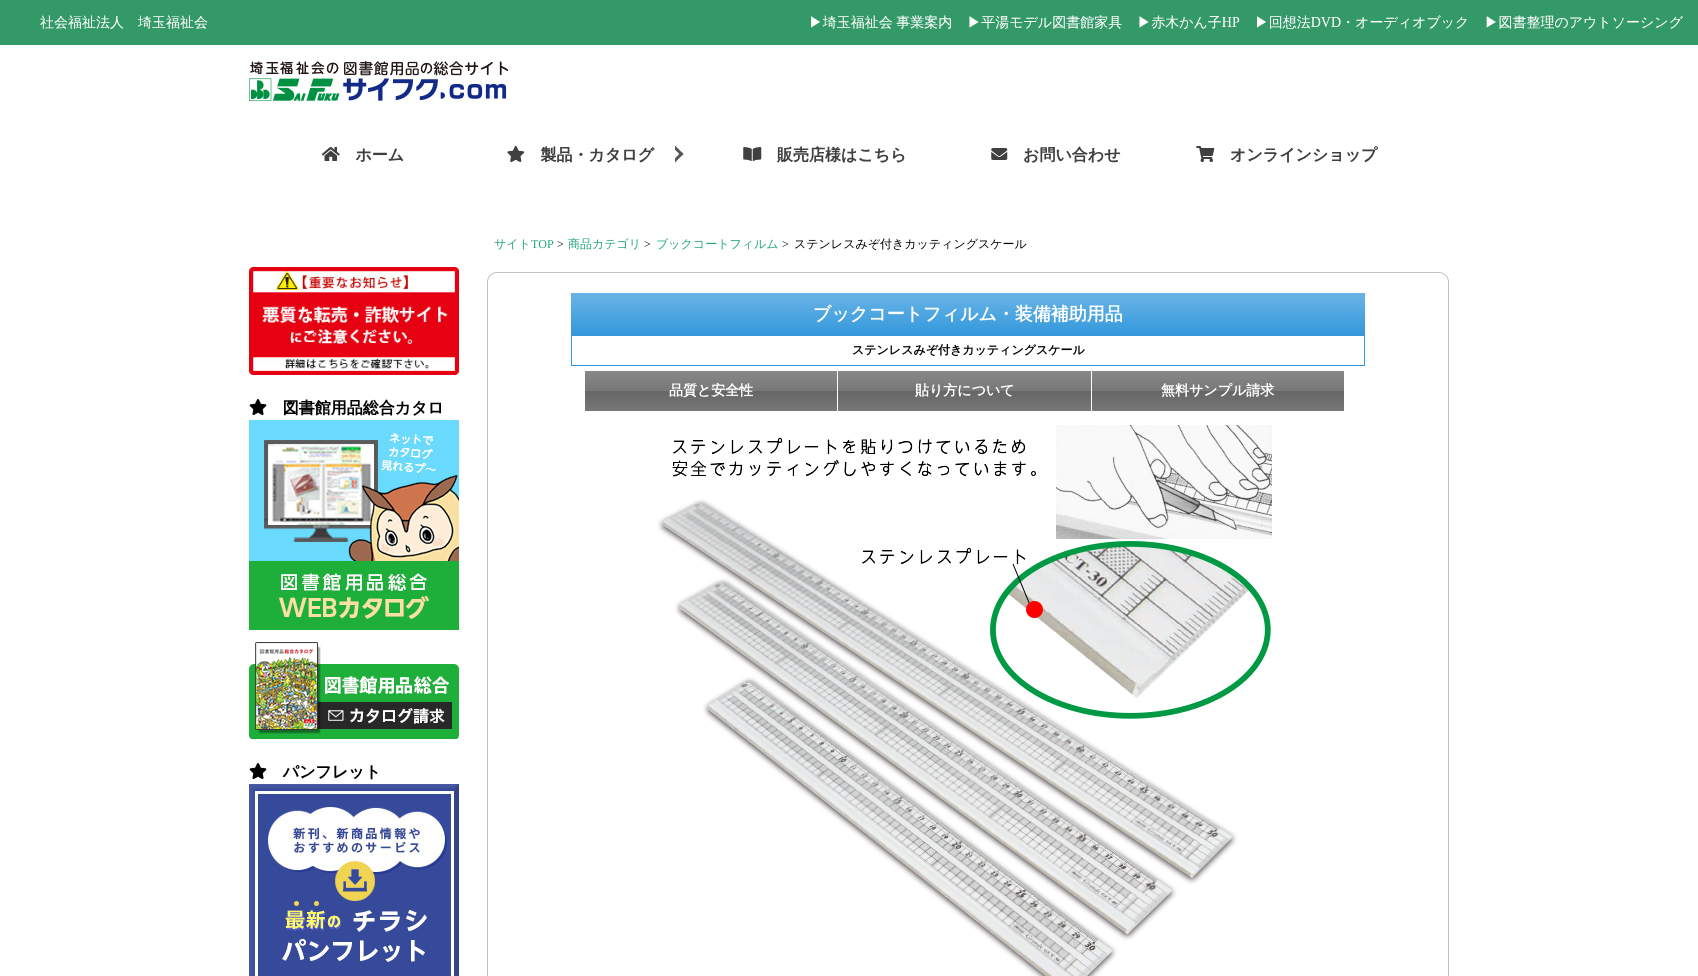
#include <cairo.h>
#include <math.h>
#include <stddef.h>

typedef struct { const char *family; double size; int italic, bold; unsigned color; } style_t;
static cairo_t *ctx;

static void ink(unsigned color) {
    cairo_set_source_rgb(ctx, (color >> 16) / 255.0, (color >> 8 & 255) / 255.0, (color & 255) / 255.0);
}

static void write(double x, double y, const char *s, const style_t *st) {
    cairo_select_font_face(ctx, st->family, st->italic ? CAIRO_FONT_SLANT_ITALIC : CAIRO_FONT_SLANT_NORMAL,
        st->bold ? CAIRO_FONT_WEIGHT_BOLD : CAIRO_FONT_WEIGHT_NORMAL);
    cairo_set_font_size(ctx, st->size);
    ink(st->color);
    cairo_move_to(ctx, x, y);
    cairo_show_text(ctx, s);
}

static void round_path(double x, double y, double w, double h, double r) {
    cairo_new_sub_path(ctx);
    cairo_arc(ctx, x + w - r, y + h - r, r, 0, M_PI / 2);
    cairo_arc(ctx, x + r, y + h - r, r, M_PI / 2, M_PI);
    cairo_arc(ctx, x + r, y + r, r, M_PI, 1.5 * M_PI);
    cairo_arc(ctx, x + w - r, y + r, r, 1.5 * M_PI, 2 * M_PI);
    cairo_close_path(ctx);
}

static void paste(const char *path, double x, double y, double w, double h) {
    cairo_surface_t *image = cairo_image_surface_create_from_png(path);
    cairo_save(ctx);
    cairo_set_source_surface(ctx, image, x, y);
    cairo_rectangle(ctx, x, y, w, h);
    cairo_fill(ctx);
    cairo_restore(ctx);
    cairo_surface_destroy(image);
}

static const style_t s1 = {"WenQuanYi Zen Hei Medium", 12, 0, 0, 0x1fa67a};
static const style_t s2 = {"Liberation Serif", 12, 0, 0, 0x1fa67a};
static const style_t s3 = {"Liberation Serif", 12, 0, 0, 0x000000};
static const style_t s4 = {"WenQuanYi Zen Hei Medium", 12, 0, 0, 0x000000};
static const style_t s5 = {"WenQuanYi Zen Hei", 18, 0, 1, 0xffffff};
static const style_t s6 = {"WenQuanYi Zen Hei", 12, 0, 1, 0x000000};
static const style_t s7 = {"WenQuanYi Zen Hei", 14, 0, 1, 0xffffff};

int main(void) {
    cairo_surface_t *surface = cairo_image_surface_create(CAIRO_FORMAT_RGB24, 1698, 976);
    ctx = cairo_create(surface);
    cairo_font_options_t *options = cairo_font_options_create();
    cairo_font_options_set_hint_metrics(options, CAIRO_HINT_METRICS_OFF);
    cairo_font_options_set_hint_style(options, CAIRO_HINT_STYLE_NONE);
    cairo_set_font_options(ctx, options);
    cairo_set_miter_limit(ctx, 4);
    cairo_pattern_t *gradient;
    ink(0xffffff);
    cairo_paint(ctx);
    paste("pic1.png", 0, 0, 1698, 163);
    write(494, 248, "サイト", &s1);
    write(531, 248, "TOP", &s2);
    write(557, 248, ">", &s3);
    write(568, 248, "商品カテゴリ", &s1);
    write(644, 248, ">", &s3);
    write(656, 248, "ブックコートフィルム", &s1);
    write(782, 248, ">", &s3);
    write(794, 248, "ステンレスみぞ付きカッティングスケール", &s4);
    paste("pic2.png", 249, 267, 210, 709);
    round_path(487.5, 272.5, 961, 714, 9.5);
    ink(0xc0c0c0);
    cairo_set_line_width(ctx, 1);
    cairo_stroke(ctx);
    gradient = cairo_pattern_create_linear(968, 293, 968, 335);
    cairo_pattern_add_color_stop_rgba(gradient, 0, 0.412, 0.706, 0.902, 1);
    cairo_pattern_add_color_stop_rgba(gradient, 1, 0.204, 0.596, 0.859, 1);
    cairo_set_source(ctx, gradient);
    cairo_pattern_destroy(gradient);
    cairo_rectangle(ctx, 571, 293, 794, 42);
    cairo_fill(ctx);
    write(813, 320, "ブックコートフィルム・装備補助用品", &s5);
    cairo_rectangle(ctx, 571.5, 335.5, 793, 30);
    ink(0x3498db);
    cairo_stroke(ctx);
    write(852, 354, "ステンレスみぞ付きカッティングスケール", &s6);
    gradient = cairo_pattern_create_linear(585, 371, 585, 411);
    cairo_pattern_add_color_stop_rgba(gradient, 0, 0.533, 0.533, 0.533, 1);
    cairo_pattern_add_color_stop_rgba(gradient, 0.5, 0.467, 0.467, 0.467, 1);
    cairo_pattern_add_color_stop_rgba(gradient, 0.5, 0.4, 0.4, 0.4, 1);
    cairo_pattern_add_color_stop_rgba(gradient, 1, 0.467, 0.467, 0.467, 1);
    cairo_set_source(ctx, gradient);
    cairo_pattern_destroy(gradient);
    cairo_rectangle(ctx, 585, 371, 252, 40);
    cairo_fill(ctx);
    write(669, 395, "品質と安全性", &s7);
    gradient = cairo_pattern_create_linear(838, 371, 838, 411);
    cairo_pattern_add_color_stop_rgba(gradient, 0, 0.533, 0.533, 0.533, 1);
    cairo_pattern_add_color_stop_rgba(gradient, 0.5, 0.467, 0.467, 0.467, 1);
    cairo_pattern_add_color_stop_rgba(gradient, 0.5, 0.4, 0.4, 0.4, 1);
    cairo_pattern_add_color_stop_rgba(gradient, 1, 0.467, 0.467, 0.467, 1);
    cairo_set_source(ctx, gradient);
    cairo_pattern_destroy(gradient);
    cairo_rectangle(ctx, 838, 371, 253, 40);
    cairo_fill(ctx);
    write(915, 395, "貼り方について", &s7);
    gradient = cairo_pattern_create_linear(1092, 371, 1092, 411);
    cairo_pattern_add_color_stop_rgba(gradient, 0, 0.533, 0.533, 0.533, 1);
    cairo_pattern_add_color_stop_rgba(gradient, 0.5, 0.467, 0.467, 0.467, 1);
    cairo_pattern_add_color_stop_rgba(gradient, 0.5, 0.4, 0.4, 0.4, 1);
    cairo_pattern_add_color_stop_rgba(gradient, 1, 0.467, 0.467, 0.467, 1);
    cairo_set_source(ctx, gradient);
    cairo_pattern_destroy(gradient);
    cairo_rectangle(ctx, 1092, 371, 252, 40);
    cairo_fill(ctx);
    write(1161, 395, "無料サンプル請求", &s7);
    paste("pic3.png", 657, 425, 615, 551);
    cairo_surface_write_to_png(surface, "screenshot.png");
    cairo_font_options_destroy(options);
    cairo_destroy(ctx);
    cairo_surface_destroy(surface);
    return 0;
}
